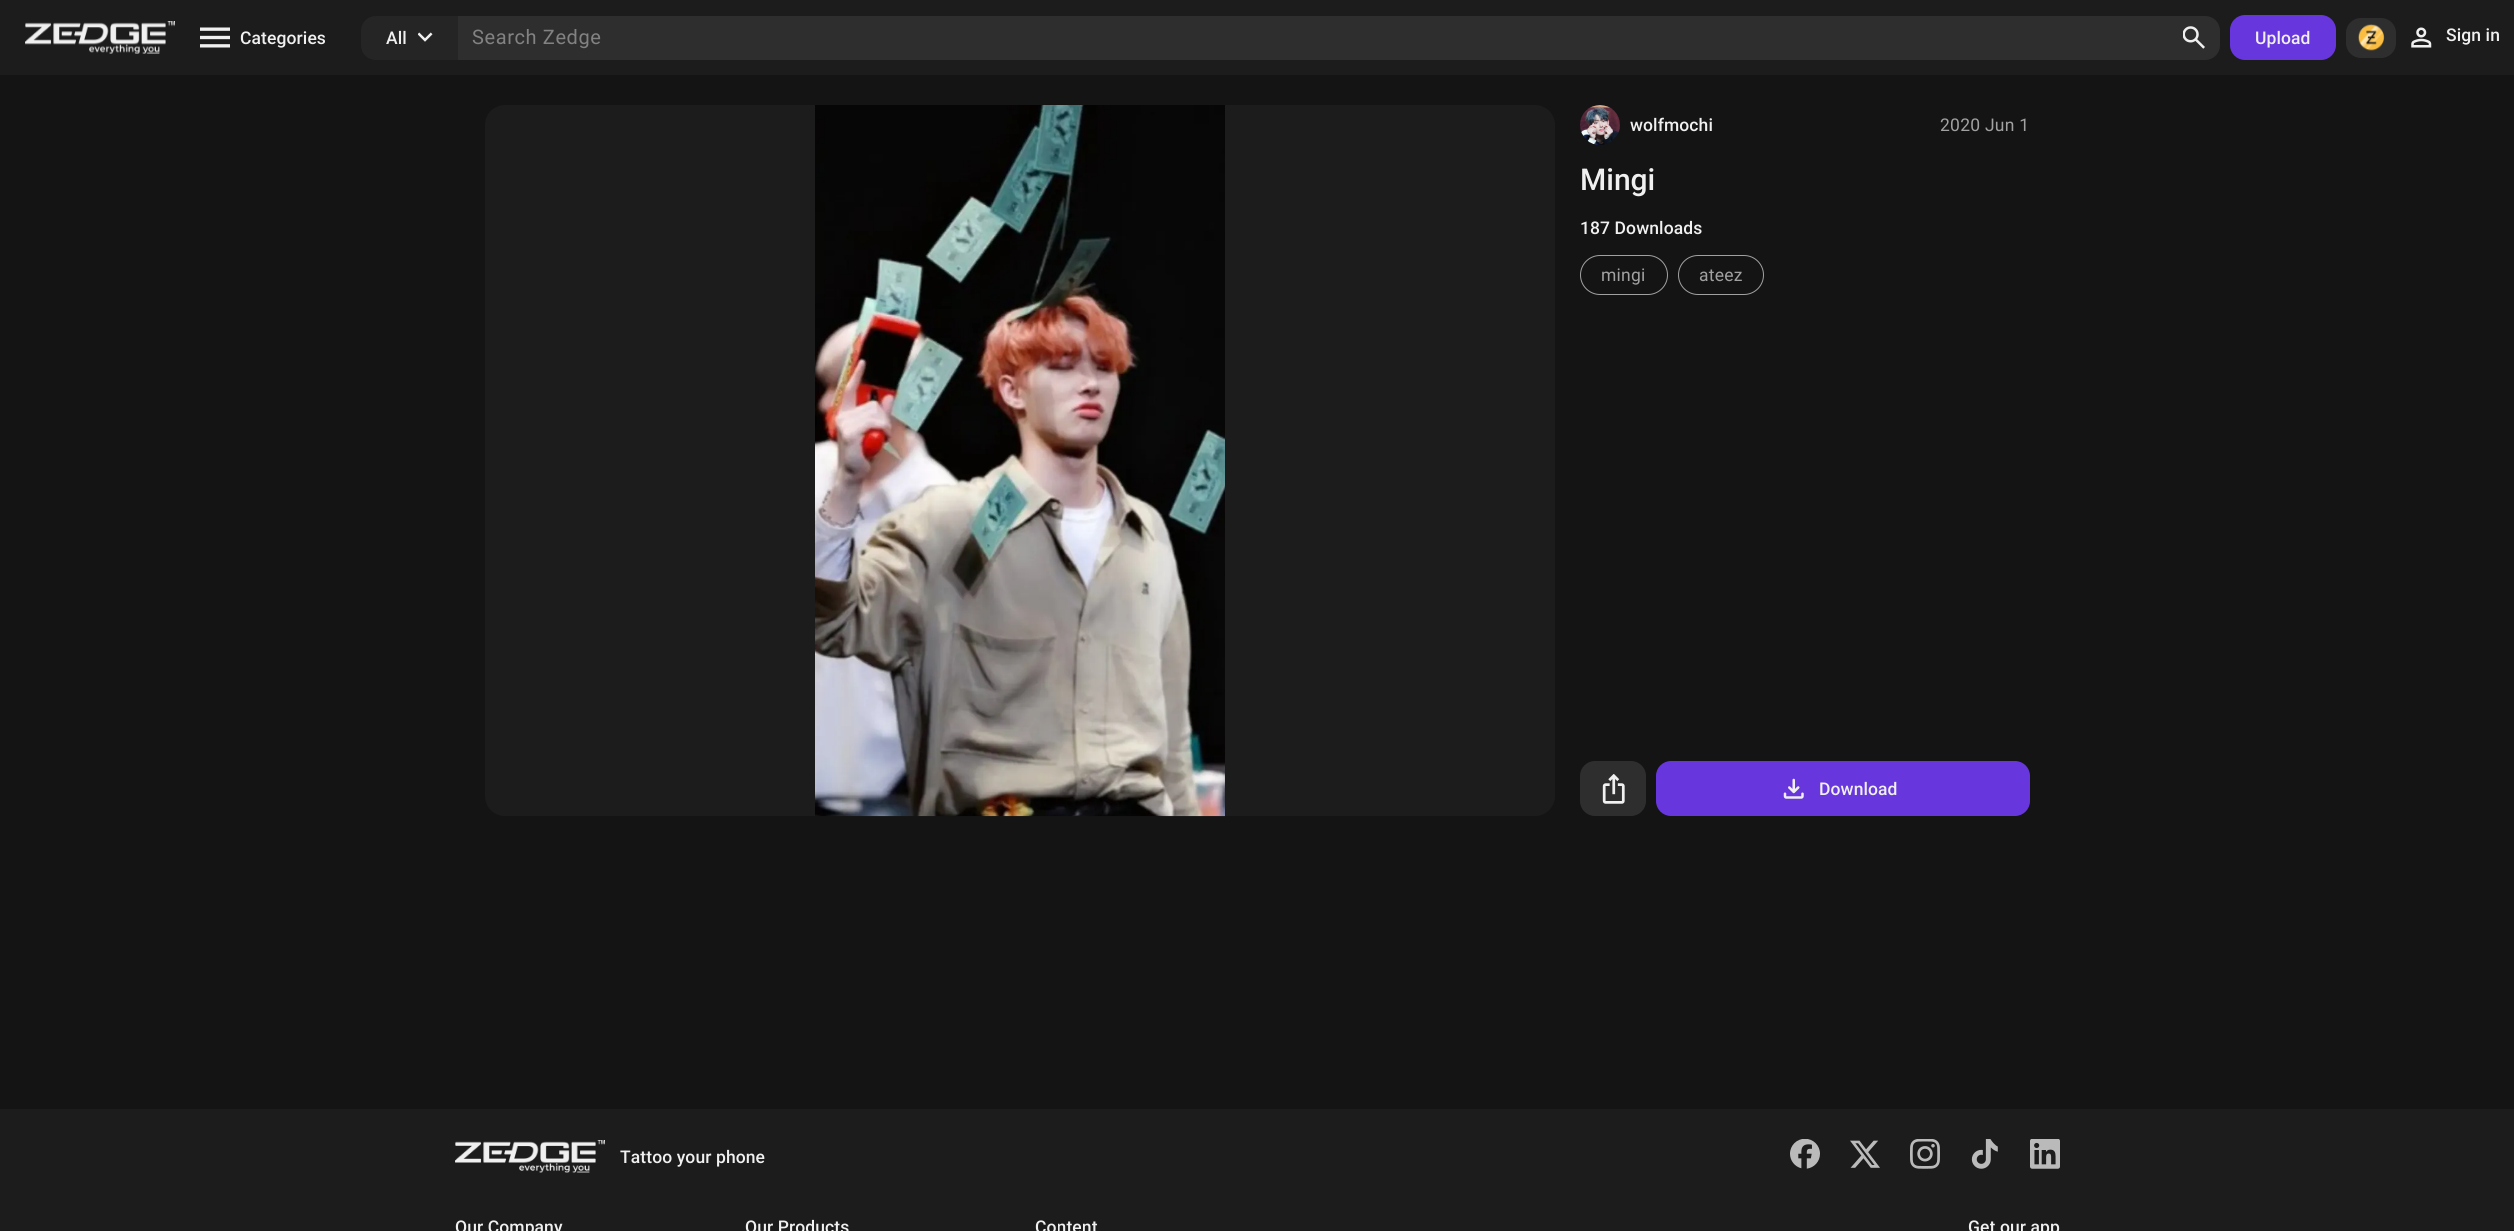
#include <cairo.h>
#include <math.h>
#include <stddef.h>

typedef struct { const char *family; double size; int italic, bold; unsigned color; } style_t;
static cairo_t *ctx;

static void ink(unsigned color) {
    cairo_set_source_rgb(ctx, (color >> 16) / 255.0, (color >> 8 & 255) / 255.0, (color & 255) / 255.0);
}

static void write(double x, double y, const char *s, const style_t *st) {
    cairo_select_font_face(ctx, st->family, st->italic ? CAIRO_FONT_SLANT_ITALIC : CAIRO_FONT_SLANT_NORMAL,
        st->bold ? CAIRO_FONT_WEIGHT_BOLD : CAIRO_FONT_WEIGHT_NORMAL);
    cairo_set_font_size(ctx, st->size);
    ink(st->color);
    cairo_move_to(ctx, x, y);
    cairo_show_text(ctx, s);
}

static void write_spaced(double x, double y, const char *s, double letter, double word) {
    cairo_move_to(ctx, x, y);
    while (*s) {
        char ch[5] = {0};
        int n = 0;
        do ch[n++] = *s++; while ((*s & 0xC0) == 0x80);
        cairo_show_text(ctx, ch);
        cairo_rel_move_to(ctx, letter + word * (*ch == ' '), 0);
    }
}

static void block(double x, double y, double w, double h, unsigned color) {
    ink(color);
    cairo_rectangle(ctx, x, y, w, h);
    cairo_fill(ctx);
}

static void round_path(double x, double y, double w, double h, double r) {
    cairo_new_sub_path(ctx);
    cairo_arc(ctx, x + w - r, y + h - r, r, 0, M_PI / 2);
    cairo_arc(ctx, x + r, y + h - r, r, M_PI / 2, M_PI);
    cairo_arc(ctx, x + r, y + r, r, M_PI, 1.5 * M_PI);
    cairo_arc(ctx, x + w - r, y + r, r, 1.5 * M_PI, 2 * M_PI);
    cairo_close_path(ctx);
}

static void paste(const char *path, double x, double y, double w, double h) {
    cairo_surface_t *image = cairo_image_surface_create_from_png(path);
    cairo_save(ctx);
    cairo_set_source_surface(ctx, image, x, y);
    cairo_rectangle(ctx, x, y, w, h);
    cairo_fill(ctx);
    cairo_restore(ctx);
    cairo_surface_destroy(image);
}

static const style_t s1 = {"Roboto Medium", 30, 0, 0, 0xf0f0f0};

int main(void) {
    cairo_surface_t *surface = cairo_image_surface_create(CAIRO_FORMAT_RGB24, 2514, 1231);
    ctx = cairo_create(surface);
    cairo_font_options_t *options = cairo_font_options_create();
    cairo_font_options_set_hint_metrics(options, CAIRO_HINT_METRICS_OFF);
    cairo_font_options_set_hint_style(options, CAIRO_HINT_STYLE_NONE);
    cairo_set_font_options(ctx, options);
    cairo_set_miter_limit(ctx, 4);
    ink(0x141414);
    cairo_paint(ctx);
    block(0, 0, 2514, 75, 0x1c1c1c);
    paste("pic1.png", 25, 21, 150, 24);
    paste("pic2.png", 89, 44, 71, 10);
    paste("pic3.png", 200, 27, 30, 21);
    cairo_select_font_face(ctx, "Roboto Medium", CAIRO_FONT_SLANT_NORMAL, CAIRO_FONT_WEIGHT_NORMAL);
    cairo_set_font_size(ctx, 17.5);
    ink(0xf0f0f0);
    write_spaced(240, 44, "Categories", 0.1, 0);
    ink(0x252525);
    cairo_new_path(ctx);
    cairo_move_to(ctx, 376, 16);
    cairo_line_to(ctx, 458, 16);
    cairo_line_to(ctx, 458, 60);
    cairo_line_to(ctx, 376, 60);
    cairo_curve_to(ctx, 367.5, 60, 361, 53.5, 361, 45);
    cairo_line_to(ctx, 361, 31);
    cairo_curve_to(ctx, 361, 22.5, 367.5, 16, 376, 16);
    cairo_close_path(ctx);
    cairo_fill(ctx);
    ink(0xf0f0f0);
    write_spaced(386, 44, "All", 0.1, 0);
    paste("pic4.png", 418, 32, 15, 10);
    ink(0x2e2e2e);
    cairo_new_path(ctx);
    cairo_move_to(ctx, 458, 16);
    cairo_line_to(ctx, 2205, 16);
    cairo_curve_to(ctx, 2213.5, 16, 2220, 22.5, 2220, 31);
    cairo_line_to(ctx, 2220, 45);
    cairo_curve_to(ctx, 2220, 53.5, 2213.5, 60, 2205, 60);
    cairo_line_to(ctx, 458, 60);
    cairo_close_path(ctx);
    cairo_fill(ctx);
    cairo_select_font_face(ctx, "Roboto", CAIRO_FONT_SLANT_NORMAL, CAIRO_FONT_WEIGHT_NORMAL);
    cairo_set_font_size(ctx, 20);
    ink(0x828282);
    write_spaced(472, 44, "Search Zedge", 0.6, 0);
    paste("pic5.png", 2183, 26, 22, 23);
    ink(0x6836dd);
    round_path(2230, 15, 106, 45, 15);
    cairo_fill(ctx);
    cairo_select_font_face(ctx, "Roboto Medium", CAIRO_FONT_SLANT_NORMAL, CAIRO_FONT_WEIGHT_NORMAL);
    cairo_set_font_size(ctx, 17.5);
    ink(0xf0f0f0);
    write_spaced(2255, 44, "Upload", 0.1, 0);
    ink(0x2e2e2e);
    round_path(2346, 18, 50, 40, 15);
    cairo_fill(ctx);
    paste("pic6.png", 2358, 24, 27, 27);
    paste("pic7.png", 2411, 27, 21, 21);
    ink(0xf0f0f0);
    write_spaced(2446, 41, "Sign in", 0.1, 0);
    ink(0x1c1c1c);
    round_path(485, 105, 1070, 711, 20);
    cairo_fill(ctx);
    paste("pic8.png", 815, 105, 410, 712);
    paste("pic9.png", 1580, 105, 40, 40);
    ink(0xf0f0f0);
    write_spaced(1630, 131, "wolfmochi", 0.1, 0);
    cairo_select_font_face(ctx, "Roboto", CAIRO_FONT_SLANT_NORMAL, CAIRO_FONT_WEIGHT_NORMAL);
    ink(0xa1a1a1);
    write_spaced(1940, 131, "2020 Jun 1", 0.25, 0);
    write(1580, 190, "Mingi", &s1);
    cairo_set_font_size(ctx, 17.5);
    write_spaced(1580, 234, "187 Downloads", 0.1, 0);
    round_path(1580.5, 255.5, 87, 39, 19.5);
    ink(0xa1a1a1);
    cairo_set_line_width(ctx, 1);
    cairo_stroke(ctx);
    cairo_select_font_face(ctx, "Roboto", CAIRO_FONT_SLANT_NORMAL, CAIRO_FONT_WEIGHT_NORMAL);
    write_spaced(1601, 281, "mingi", 0.25, 0);
    round_path(1678.5, 255.5, 85, 39, 19.5);
    cairo_stroke(ctx);
    write_spaced(1699, 281, "ateez", 0.25, 0);
    ink(0x2e2e2e);
    round_path(1580, 761, 66, 55, 15);
    cairo_fill(ctx);
    paste("pic10.png", 1602, 774, 23, 30);
    ink(0x6836dd);
    round_path(1656, 761, 374, 55, 15);
    cairo_fill(ctx);
    paste("pic11.png", 1783, 778, 21, 21);
    cairo_select_font_face(ctx, "Roboto Medium", CAIRO_FONT_SLANT_NORMAL, CAIRO_FONT_WEIGHT_NORMAL);
    ink(0xf0f0f0);
    write_spaced(1819, 795, "Download", 0.1, 0);
    block(0, 1109, 2514, 122, 0x1c1c1c);
    paste("pic12.png", 455, 1140, 150, 23);
    paste("pic13.png", 519, 1163, 71, 10);
    ink(0xf0f0f0);
    write_spaced(620, 1163, "Tattoo your phone", 0.1, 0);
    paste("pic14.png", 1790, 1139, 30, 30);
    paste("pic15.png", 1850, 1140, 30, 28);
    paste("pic16.png", 1910, 1139, 30, 30);
    paste("pic17.png", 1971, 1139, 27, 30);
    paste("pic18.png", 2030, 1139, 30, 30);
    write_spaced(455, 1233, "Our Company", 0.1, 0);
    write_spaced(745, 1233, "Our Products", 0.1, 0);
    write_spaced(1035, 1233, "Content", 0.1, 0);
    write_spaced(1968, 1233, "Get our app", 0.1, 0);
    cairo_surface_write_to_png(surface, "screenshot.png");
    cairo_font_options_destroy(options);
    cairo_destroy(ctx);
    cairo_surface_destroy(surface);
    return 0;
}
